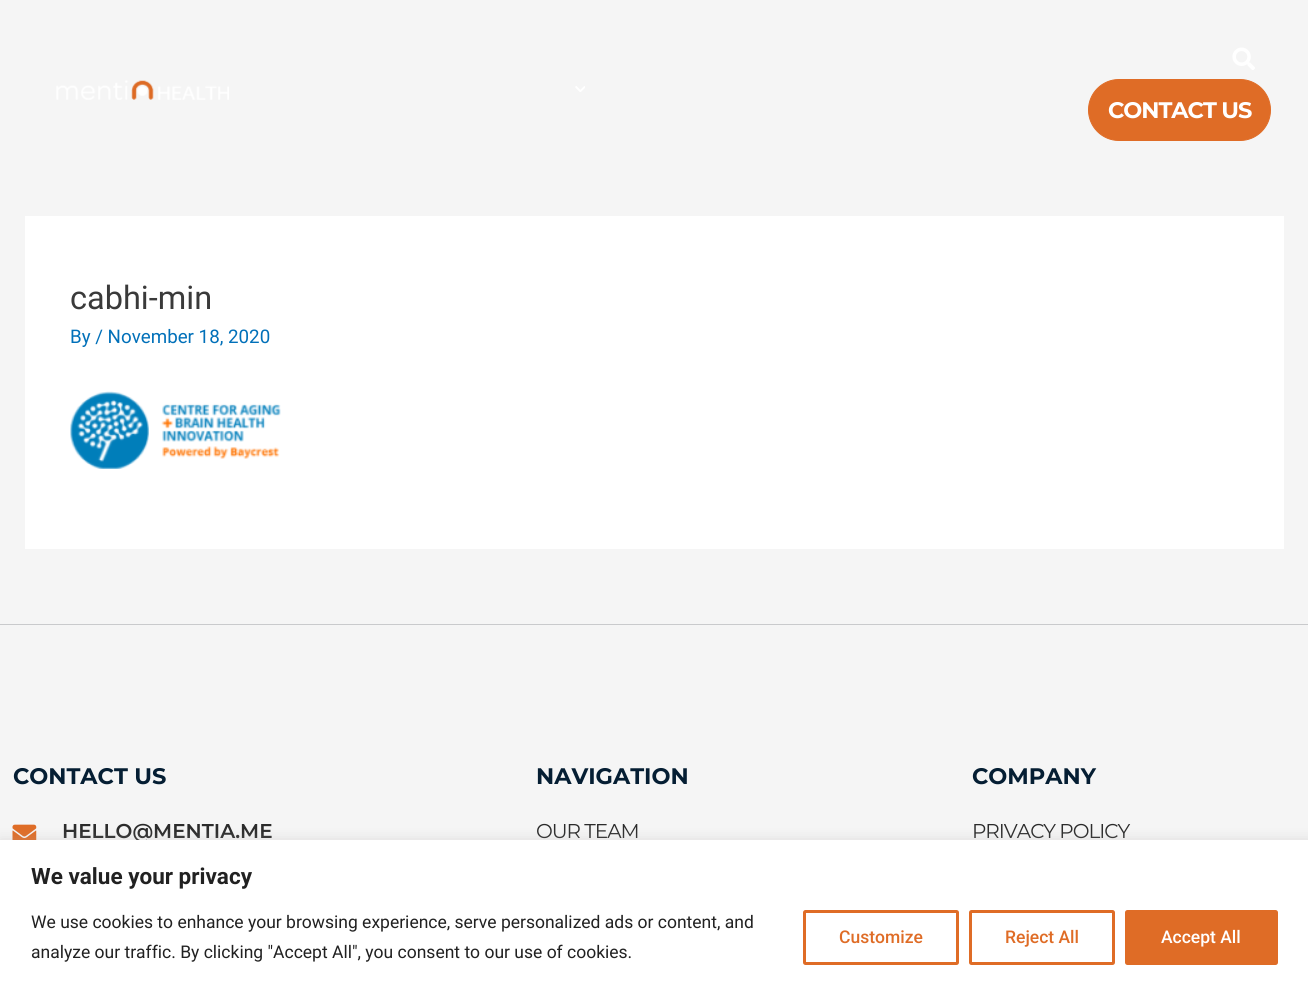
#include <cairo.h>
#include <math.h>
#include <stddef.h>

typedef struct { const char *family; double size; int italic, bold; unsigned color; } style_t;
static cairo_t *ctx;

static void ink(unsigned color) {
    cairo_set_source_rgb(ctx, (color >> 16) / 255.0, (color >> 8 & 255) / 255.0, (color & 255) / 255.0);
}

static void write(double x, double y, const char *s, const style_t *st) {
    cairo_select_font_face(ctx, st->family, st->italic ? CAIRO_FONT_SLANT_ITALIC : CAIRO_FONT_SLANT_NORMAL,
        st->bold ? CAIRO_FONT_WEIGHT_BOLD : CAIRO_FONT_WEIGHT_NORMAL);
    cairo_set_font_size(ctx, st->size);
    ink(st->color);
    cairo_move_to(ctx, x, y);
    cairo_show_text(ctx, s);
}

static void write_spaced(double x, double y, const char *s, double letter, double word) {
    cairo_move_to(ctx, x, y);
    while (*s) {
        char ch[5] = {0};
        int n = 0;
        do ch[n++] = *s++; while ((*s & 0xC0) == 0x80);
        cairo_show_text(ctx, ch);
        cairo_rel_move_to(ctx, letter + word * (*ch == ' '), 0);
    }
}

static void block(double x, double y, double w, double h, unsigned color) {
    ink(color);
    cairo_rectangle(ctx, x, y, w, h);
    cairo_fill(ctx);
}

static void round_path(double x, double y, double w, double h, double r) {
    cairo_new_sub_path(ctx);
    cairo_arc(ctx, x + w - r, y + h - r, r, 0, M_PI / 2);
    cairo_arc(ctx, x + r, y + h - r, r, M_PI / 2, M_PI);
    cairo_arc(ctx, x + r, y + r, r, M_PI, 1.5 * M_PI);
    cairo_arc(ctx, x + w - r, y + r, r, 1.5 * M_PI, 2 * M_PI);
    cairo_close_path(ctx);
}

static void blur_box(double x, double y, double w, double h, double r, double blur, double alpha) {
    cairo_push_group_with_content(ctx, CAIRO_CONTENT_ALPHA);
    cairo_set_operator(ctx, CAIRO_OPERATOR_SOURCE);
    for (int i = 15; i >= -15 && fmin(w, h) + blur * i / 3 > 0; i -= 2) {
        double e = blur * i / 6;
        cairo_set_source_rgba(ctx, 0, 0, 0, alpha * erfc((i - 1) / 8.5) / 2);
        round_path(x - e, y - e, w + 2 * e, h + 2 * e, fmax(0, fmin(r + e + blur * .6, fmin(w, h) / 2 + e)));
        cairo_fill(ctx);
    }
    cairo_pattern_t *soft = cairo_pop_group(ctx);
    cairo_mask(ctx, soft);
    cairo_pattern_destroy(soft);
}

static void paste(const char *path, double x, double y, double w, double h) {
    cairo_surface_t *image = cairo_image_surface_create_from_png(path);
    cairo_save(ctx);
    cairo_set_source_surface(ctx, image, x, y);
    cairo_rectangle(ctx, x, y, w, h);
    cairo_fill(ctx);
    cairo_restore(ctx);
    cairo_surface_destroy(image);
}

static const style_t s1 = {"Roboto", 32.5, 0, 0, 0x3a3a3a};
static const style_t s2 = {"Roboto", 18.75, 0, 0, 0x0170b9};
static const style_t s3 = {"Montserrat", 22.5, 0, 1, 0x051e33};
static const style_t s4 = {"Montserrat SemiBold", 20, 0, 0, 0x2b2b2b};
static const style_t s5 = {"Roboto", 22.5, 0, 1, 0x212121};
static const style_t s6 = {"Roboto", 17.5, 0, 0, 0x212121};
static const style_t s7 = {"Roboto Medium", 17.5, 0, 0, 0xdf6c26};
static const style_t s8 = {"Roboto Medium", 17.5, 0, 0, 0xffffff};

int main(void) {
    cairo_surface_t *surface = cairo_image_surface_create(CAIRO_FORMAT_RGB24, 1308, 988);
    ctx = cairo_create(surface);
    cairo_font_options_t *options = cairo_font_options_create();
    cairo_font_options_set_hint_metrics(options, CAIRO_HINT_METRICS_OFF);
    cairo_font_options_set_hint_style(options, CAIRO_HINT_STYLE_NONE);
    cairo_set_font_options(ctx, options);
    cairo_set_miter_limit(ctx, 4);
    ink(0xf5f5f5);
    cairo_paint(ctx);
    paste("pic1.png", 56, 80, 173, 20);
    paste("pic2.png", 575, 86, 10, 6);
    paste("pic3.png", 1232, 47, 23, 23);
    ink(0xdf6c26);
    round_path(1088.5, 79.5, 182, 61, 30.5);
    cairo_fill_preserve(ctx);
    cairo_set_line_width(ctx, 1);
    cairo_stroke(ctx);
    cairo_select_font_face(ctx, "Montserrat", CAIRO_FONT_SLANT_NORMAL, CAIRO_FONT_WEIGHT_BOLD);
    cairo_set_font_size(ctx, 22.5);
    ink(0xffffff);
    write_spaced(1108, 118, "CONTACT US", -1, 0);
    block(25, 216, 1259, 333, 0xffffff);
    write(70, 309, "cabhi-min", &s1);
    write(70, 343, "By / November 18, 2020", &s2);
    paste("pic4.png", 70, 391, 211, 78);
    block(0, 624, 1308, 1, 0xc9cacc);
    write(13, 784, "CONTACT US", &s3);
    paste("pic5.png", 12, 824, 25, 16);
    write(62, 838, "HELLO@MENTIA.ME", &s4);
    write(536, 784, "NAVIGATION", &s3);
    cairo_select_font_face(ctx, "Montserrat", CAIRO_FONT_SLANT_NORMAL, CAIRO_FONT_WEIGHT_NORMAL);
    cairo_set_font_size(ctx, 20);
    ink(0x2b2b2b);
    write_spaced(536, 838, "OUR TEAM", -1, 0);
    write(972, 784, "COMPANY", &s3);
    cairo_select_font_face(ctx, "Montserrat", CAIRO_FONT_SLANT_NORMAL, CAIRO_FONT_WEIGHT_NORMAL);
    cairo_set_font_size(ctx, 20);
    ink(0x2b2b2b);
    write_spaced(972, 838, "PRIVACY POLICY", -1, 0);
    ink(0xacabab);
    blur_box(0, 839, 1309, 149, 0, 6, 0.3);
    block(0, 840, 1308, 148, 0xffffff);
    write(31, 884, "We value your privacy", &s5);
    write(31, 928, "We use cookies to enhance your browsing experience, serve personalized ads or content, and", &s6);
    write(31, 958, "analyze our traffic. By clicking \"Accept All\", you consent to our use of cookies.", &s6);
    round_path(804.5, 911.5, 153, 52, 1);
    ink(0xdf6c26);
    cairo_set_line_width(ctx, 3);
    cairo_stroke(ctx);
    write(839, 943, "Customize", &s7);
    round_path(970.5, 911.5, 143, 52, 1);
    cairo_stroke(ctx);
    write(1005, 943, "Reject All", &s7);
    round_path(1126.5, 911.5, 150, 52, 1);
    cairo_fill_preserve(ctx);
    cairo_stroke(ctx);
    write(1161, 943, "Accept All", &s8);
    cairo_surface_write_to_png(surface, "screenshot.png");
    cairo_font_options_destroy(options);
    cairo_destroy(ctx);
    cairo_surface_destroy(surface);
    return 0;
}
